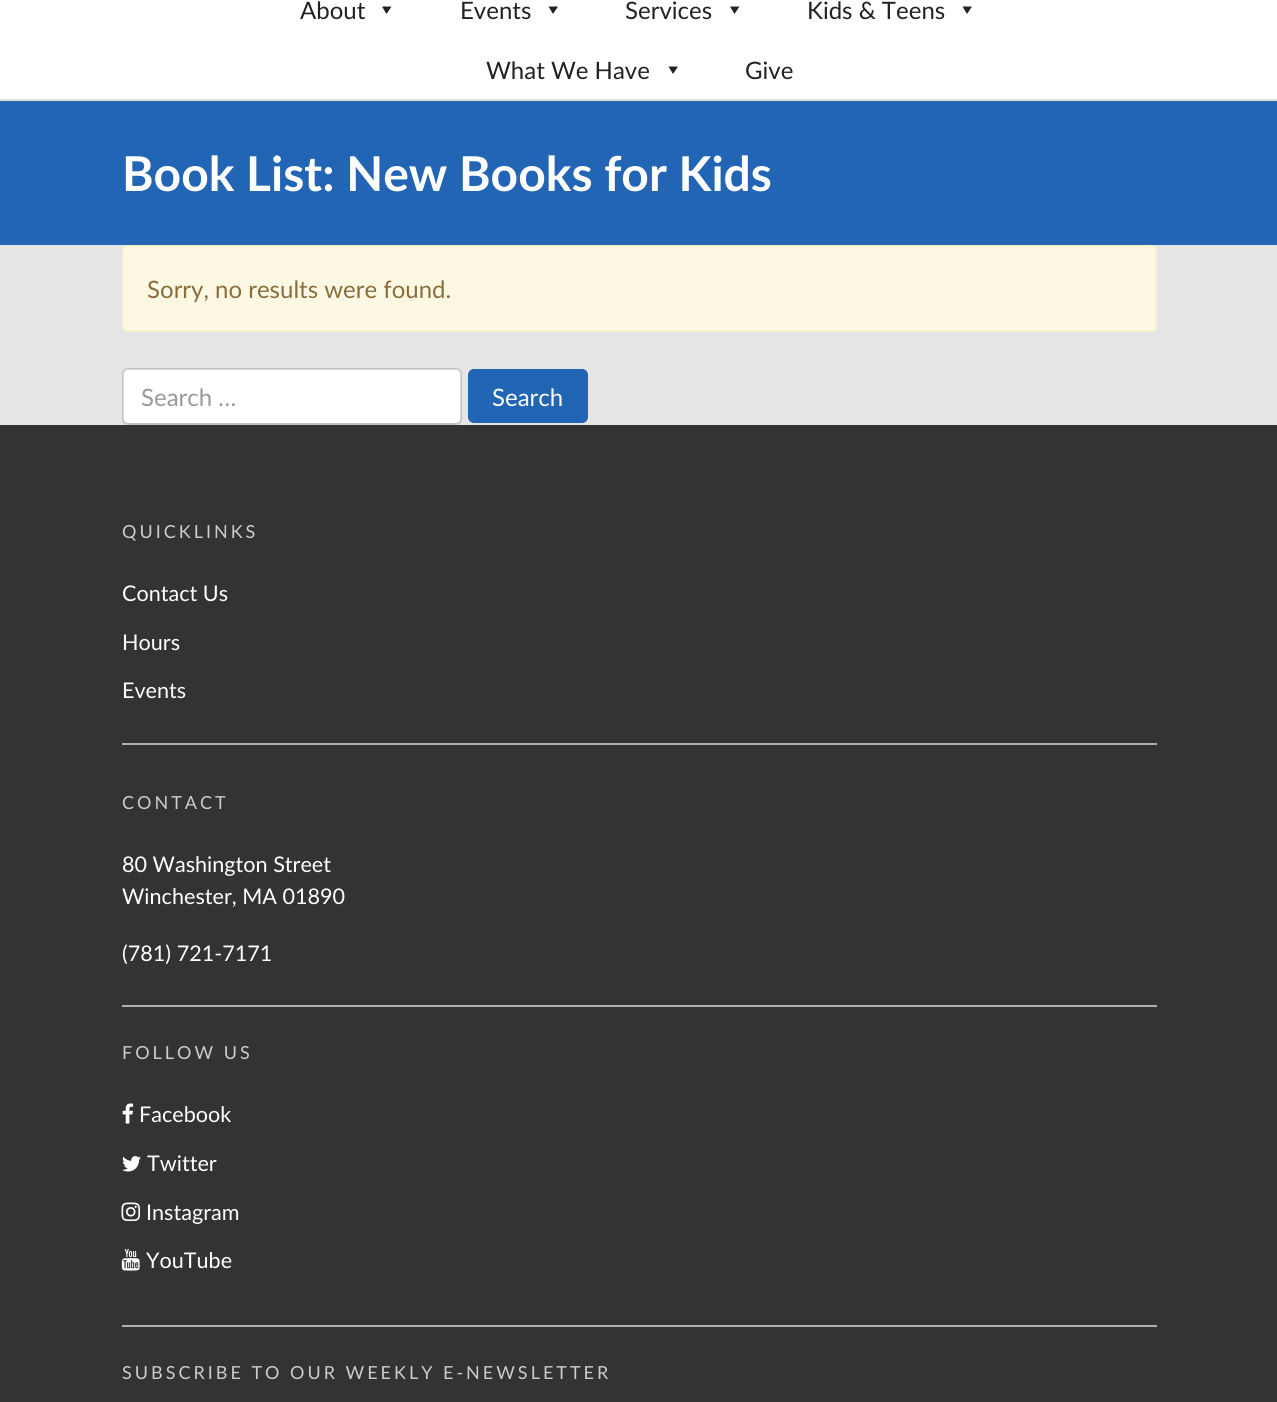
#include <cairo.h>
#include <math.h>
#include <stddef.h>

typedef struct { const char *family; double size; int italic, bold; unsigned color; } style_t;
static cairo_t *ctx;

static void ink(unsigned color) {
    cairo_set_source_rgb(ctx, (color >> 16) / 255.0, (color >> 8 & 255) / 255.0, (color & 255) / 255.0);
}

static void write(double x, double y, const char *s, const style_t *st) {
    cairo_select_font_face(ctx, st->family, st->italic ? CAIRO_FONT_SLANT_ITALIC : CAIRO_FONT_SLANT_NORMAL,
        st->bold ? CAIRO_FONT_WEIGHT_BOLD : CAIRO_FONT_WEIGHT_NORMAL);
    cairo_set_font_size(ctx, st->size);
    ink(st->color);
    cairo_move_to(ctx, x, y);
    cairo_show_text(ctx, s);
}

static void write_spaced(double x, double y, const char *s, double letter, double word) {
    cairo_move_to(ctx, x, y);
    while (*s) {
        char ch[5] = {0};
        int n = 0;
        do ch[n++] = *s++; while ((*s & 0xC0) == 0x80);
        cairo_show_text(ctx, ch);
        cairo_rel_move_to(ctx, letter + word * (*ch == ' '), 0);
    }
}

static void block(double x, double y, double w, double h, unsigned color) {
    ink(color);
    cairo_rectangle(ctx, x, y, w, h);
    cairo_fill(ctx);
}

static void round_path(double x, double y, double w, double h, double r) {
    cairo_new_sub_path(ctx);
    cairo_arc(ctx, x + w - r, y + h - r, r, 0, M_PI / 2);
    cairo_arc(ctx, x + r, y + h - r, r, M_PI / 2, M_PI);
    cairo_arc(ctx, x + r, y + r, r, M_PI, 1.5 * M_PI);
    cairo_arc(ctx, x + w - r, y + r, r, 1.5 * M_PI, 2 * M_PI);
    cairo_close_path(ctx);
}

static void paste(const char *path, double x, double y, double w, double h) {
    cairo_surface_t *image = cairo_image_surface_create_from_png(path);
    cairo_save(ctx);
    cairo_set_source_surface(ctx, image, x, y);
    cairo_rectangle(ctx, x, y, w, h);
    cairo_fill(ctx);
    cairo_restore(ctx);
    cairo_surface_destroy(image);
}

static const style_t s1 = {"Lato", 24, 0, 0, 0x222222};
static const style_t s2 = {"Lato", 48, 0, 1, 0xffffff};
static const style_t s3 = {"Lato", 24, 0, 0, 0x8a6d3b};
static const style_t s4 = {"Lato", 24, 0, 0, 0x999999};
static const style_t s5 = {"Lato", 24, 0, 0, 0xffffff};
static const style_t s6 = {"Lato", 21.6, 0, 0, 0xffffff};

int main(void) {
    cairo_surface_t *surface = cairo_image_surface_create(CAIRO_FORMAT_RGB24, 1277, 1402);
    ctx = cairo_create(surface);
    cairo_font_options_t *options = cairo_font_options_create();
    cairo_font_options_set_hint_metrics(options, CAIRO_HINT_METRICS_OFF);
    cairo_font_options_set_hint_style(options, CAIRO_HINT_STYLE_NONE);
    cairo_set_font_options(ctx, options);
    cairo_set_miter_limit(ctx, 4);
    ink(0xffffff);
    cairo_paint(ctx);
    block(0, 99, 1277, 2, 0xdddddd);
    write(300, 19, "About", &s1);
    cairo_new_path(ctx);
    cairo_move_to(ctx, 391.5, 6.5);
    cairo_line_to(ctx, 386.5, 14);
    cairo_line_to(ctx, 382, 6.5);
    cairo_close_path(ctx);
    cairo_fill(ctx);
    write(460, 19, "Events", &s1);
    cairo_new_path(ctx);
    cairo_move_to(ctx, 558, 6.5);
    cairo_line_to(ctx, 553, 14);
    cairo_line_to(ctx, 548.5, 6.5);
    cairo_close_path(ctx);
    cairo_fill(ctx);
    write(625, 19, "Services", &s1);
    cairo_new_path(ctx);
    cairo_move_to(ctx, 739.5, 6.5);
    cairo_line_to(ctx, 734.5, 14);
    cairo_line_to(ctx, 730, 6.5);
    cairo_close_path(ctx);
    cairo_fill(ctx);
    write(807, 19, "Kids & Teens", &s1);
    cairo_new_path(ctx);
    cairo_move_to(ctx, 972, 6.5);
    cairo_line_to(ctx, 967, 14);
    cairo_line_to(ctx, 962.5, 6.5);
    cairo_close_path(ctx);
    cairo_fill(ctx);
    write(486, 79, "What We Have", &s1);
    cairo_new_path(ctx);
    cairo_move_to(ctx, 678, 66.5);
    cairo_line_to(ctx, 673, 74);
    cairo_line_to(ctx, 668.5, 66.5);
    cairo_close_path(ctx);
    cairo_fill(ctx);
    write(745, 79, "Give", &s1);
    block(0, 101, 1277, 144, 0x2165b4);
    write(122, 191, "Book List: New Books for Kids", &s2);
    block(0, 245, 1277, 180, 0xe5e5e5);
    ink(0xfcf8e3);
    round_path(123, 246, 1033, 85, 5);
    cairo_fill_preserve(ctx);
    ink(0xfaf2cc);
    cairo_stroke(ctx);
    write(147, 298, "Sorry, no results were found.", &s3);
    ink(0xffffff);
    round_path(123, 369, 338, 54, 5);
    cairo_fill(ctx);
    round_path(123, 369, 338, 55, 5);
    cairo_set_source_rgba(ctx, 0, 0, 0, 0.15);
    cairo_stroke(ctx);
    write(141, 406, "Search …", &s4);
    ink(0x2165b4);
    round_path(468, 369, 120, 54, 6);
    cairo_fill(ctx);
    write(492, 406, "Search", &s5);
    block(0, 425, 1277, 977, 0x333333);
    cairo_set_font_size(ctx, 18);
    ink(0xcccccc);
    write_spaced(122, 538, "QUICKLINKS", 3, 0);
    write(122, 601, "Contact Us", &s6);
    write(122, 650, "Hours", &s6);
    write(122, 698, "Events", &s6);
    block(122, 743, 1035, 2, 0xadadad);
    cairo_set_font_size(ctx, 18);
    ink(0xcccccc);
    write_spaced(122, 809, "CONTACT", 3, 0);
    write(122, 872, "80 Washington Street", &s6);
    write(122, 904, "Winchester, MA 01890", &s6);
    write(122, 961, "(781) 721-7171", &s6);
    block(122, 1005, 1035, 2, 0xadadad);
    cairo_set_font_size(ctx, 18);
    ink(0xcccccc);
    write_spaced(122, 1059, "FOLLOW US", 3, 0);
    paste("pic1.png", 122, 1103, 12, 21);
    write(139, 1122, "Facebook", &s6);
    paste("pic2.png", 122, 1156, 19, 16);
    write(147, 1171, "Twitter", &s6);
    paste("pic3.png", 121, 1202, 19, 20);
    write(146, 1220, "Instagram", &s6);
    paste("pic4.png", 121, 1249, 19, 22);
    write(146, 1268, "YouTube", &s6);
    block(122, 1325, 1035, 2, 0xadadad);
    cairo_set_font_size(ctx, 18);
    ink(0xcccccc);
    write_spaced(122, 1379, "SUBSCRIBE TO OUR WEEKLY E-NEWSLETTER", 3, 0);
    cairo_surface_write_to_png(surface, "screenshot.png");
    cairo_font_options_destroy(options);
    cairo_destroy(ctx);
    cairo_surface_destroy(surface);
    return 0;
}
